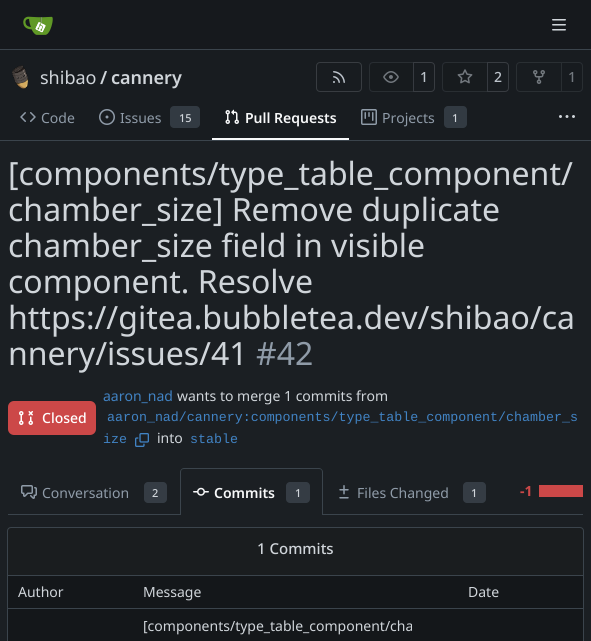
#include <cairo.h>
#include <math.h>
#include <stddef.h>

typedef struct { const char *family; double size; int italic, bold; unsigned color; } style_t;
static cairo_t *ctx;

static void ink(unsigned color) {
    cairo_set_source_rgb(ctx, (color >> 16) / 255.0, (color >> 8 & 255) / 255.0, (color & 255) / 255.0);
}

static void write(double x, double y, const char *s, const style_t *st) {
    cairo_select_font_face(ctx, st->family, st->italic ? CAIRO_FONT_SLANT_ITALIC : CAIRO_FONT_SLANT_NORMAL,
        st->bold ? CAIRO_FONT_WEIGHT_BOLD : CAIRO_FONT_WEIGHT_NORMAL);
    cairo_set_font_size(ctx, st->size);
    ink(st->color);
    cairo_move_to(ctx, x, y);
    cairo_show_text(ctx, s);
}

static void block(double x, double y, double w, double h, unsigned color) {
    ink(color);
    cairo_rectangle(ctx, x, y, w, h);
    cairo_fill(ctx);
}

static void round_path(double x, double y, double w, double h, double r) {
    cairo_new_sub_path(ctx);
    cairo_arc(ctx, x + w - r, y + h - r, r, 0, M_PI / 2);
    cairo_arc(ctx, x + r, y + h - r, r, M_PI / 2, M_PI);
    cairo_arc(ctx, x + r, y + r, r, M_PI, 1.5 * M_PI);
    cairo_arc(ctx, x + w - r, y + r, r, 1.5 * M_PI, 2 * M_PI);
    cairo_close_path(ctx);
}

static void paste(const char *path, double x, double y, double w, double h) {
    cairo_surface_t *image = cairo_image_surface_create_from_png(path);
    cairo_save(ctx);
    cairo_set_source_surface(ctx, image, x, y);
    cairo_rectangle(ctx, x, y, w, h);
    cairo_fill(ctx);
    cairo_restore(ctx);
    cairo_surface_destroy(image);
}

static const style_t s1 = {"Noto Sans", 18, 0, 0, 0xd0d5da};
static const style_t s2 = {"Noto Sans SemiBold", 18, 0, 0, 0xd0d5da};
static const style_t s3 = {"Noto Sans Medium", 14, 0, 0, 0xbcc3cb};
static const style_t s4 = {"Noto Sans Medium", 14, 0, 0, 0x72787e};
static const style_t s5 = {"Noto Sans", 14, 0, 0, 0x8f9ba8};
static const style_t s6 = {"Noto Sans Medium", 11, 0, 0, 0xd0d5da};
static const style_t s7 = {"Noto Sans SemiBold", 14, 0, 0, 0xf7f8f9};
static const style_t s8 = {"Noto Sans", 32, 0, 0, 0xd0d5da};
static const style_t s9 = {"Noto Sans", 32, 0, 0, 0x8f9ba8};
static const style_t s10 = {"Noto Sans Medium", 14, 0, 0, 0xffffff};
static const style_t s11 = {"Noto Sans", 14, 0, 0, 0x4183c4};
static const style_t s12 = {"Noto Sans", 14, 0, 0, 0xd0d5da};
static const style_t s13 = {"Liberation Mono", 13.3, 0, 0, 0x4183c4};
static const style_t s14 = {"Noto Sans", 14, 0, 1, 0xcc4848};
static const style_t s15 = {"Noto Sans Medium", 15, 0, 0, 0xd0d5da};

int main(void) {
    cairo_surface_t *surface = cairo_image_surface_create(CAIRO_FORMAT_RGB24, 591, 641);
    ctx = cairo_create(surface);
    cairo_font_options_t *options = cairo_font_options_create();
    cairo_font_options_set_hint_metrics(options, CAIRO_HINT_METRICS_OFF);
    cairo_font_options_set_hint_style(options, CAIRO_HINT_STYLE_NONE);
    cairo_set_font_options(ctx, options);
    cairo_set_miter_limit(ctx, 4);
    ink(0x1b1f23);
    cairo_paint(ctx);
    block(0, 0, 591, 49, 0x16191d);
    block(0, 49, 591, 1, 0x3b444c);
    paste("pic1.png", 23, 16, 30, 19);
    paste("pic2.png", 552, 19, 14, 12);
    block(0, 50, 591, 90, 0x181c20);
    paste("pic3.png", 12, 65, 16, 24);
    write(40, 84, "shibao", &s1);
    write(100, 84, "/", &s2);
    write(111, 84, "cannery", &s2);
    round_path(316.5, 62.5, 45, 29, 3.5);
    ink(0x383c41);
    cairo_set_line_width(ctx, 1);
    cairo_stroke(ctx);
    paste("pic4.png", 333, 71, 12, 12);
    cairo_new_path(ctx);
    cairo_move_to(ctx, 413.5, 62.5);
    cairo_line_to(ctx, 431, 62.5);
    cairo_curve_to(ctx, 433, 62.5, 434.5, 64, 434.5, 66);
    cairo_line_to(ctx, 434.5, 88);
    cairo_curve_to(ctx, 434.5, 90, 433, 91.5, 431, 91.5);
    cairo_line_to(ctx, 413.5, 91.5);
    cairo_close_path(ctx);
    cairo_stroke(ctx);
    cairo_set_source_rgba(ctx, 0.09, 0.102, 0.118, 0.55);
    cairo_new_path(ctx);
    cairo_move_to(ctx, 373, 62);
    cairo_line_to(ctx, 414, 62);
    cairo_line_to(ctx, 414, 92);
    cairo_line_to(ctx, 373, 92);
    cairo_curve_to(ctx, 371, 92, 369, 90, 369, 88);
    cairo_line_to(ctx, 369, 66);
    cairo_curve_to(ctx, 369, 64, 371, 62, 373, 62);
    cairo_close_path(ctx);
    cairo_fill(ctx);
    cairo_new_path(ctx);
    cairo_move_to(ctx, 373, 62.5);
    cairo_line_to(ctx, 413.5, 62.5);
    cairo_line_to(ctx, 413.5, 91.5);
    cairo_line_to(ctx, 373, 91.5);
    cairo_curve_to(ctx, 371, 91.5, 369.5, 90, 369.5, 88);
    cairo_line_to(ctx, 369.5, 66);
    cairo_curve_to(ctx, 369.5, 64, 371, 62.5, 373, 62.5);
    cairo_close_path(ctx);
    cairo_set_source_rgba(ctx, 0.91, 0.953, 1, 0.09);
    cairo_stroke(ctx);
    paste("pic5.png", 383, 71, 16, 12);
    write(420, 82, "1", &s3);
    cairo_new_path(ctx);
    cairo_move_to(ctx, 487.5, 62.5);
    cairo_line_to(ctx, 505, 62.5);
    cairo_curve_to(ctx, 507, 62.5, 508.5, 64, 508.5, 66);
    cairo_line_to(ctx, 508.5, 88);
    cairo_curve_to(ctx, 508.5, 90, 507, 91.5, 505, 91.5);
    cairo_line_to(ctx, 487.5, 91.5);
    cairo_close_path(ctx);
    ink(0x383c41);
    cairo_stroke(ctx);
    cairo_set_source_rgba(ctx, 0.09, 0.102, 0.118, 0.55);
    cairo_new_path(ctx);
    cairo_move_to(ctx, 446, 62);
    cairo_line_to(ctx, 488, 62);
    cairo_line_to(ctx, 488, 92);
    cairo_line_to(ctx, 446, 92);
    cairo_curve_to(ctx, 444, 92, 442, 90, 442, 88);
    cairo_line_to(ctx, 442, 66);
    cairo_curve_to(ctx, 442, 64, 444, 62, 446, 62);
    cairo_close_path(ctx);
    cairo_fill(ctx);
    cairo_new_path(ctx);
    cairo_move_to(ctx, 446, 62.5);
    cairo_line_to(ctx, 487.5, 62.5);
    cairo_line_to(ctx, 487.5, 91.5);
    cairo_line_to(ctx, 446, 91.5);
    cairo_curve_to(ctx, 444, 91.5, 442.5, 90, 442.5, 88);
    cairo_line_to(ctx, 442.5, 66);
    cairo_curve_to(ctx, 442.5, 64, 444, 62.5, 446, 62.5);
    cairo_close_path(ctx);
    cairo_set_source_rgba(ctx, 0.91, 0.953, 1, 0.09);
    cairo_stroke(ctx);
    paste("pic6.png", 457, 69, 16, 15);
    write(494, 82, "2", &s3);
    cairo_new_path(ctx);
    cairo_move_to(ctx, 520, 62.5);
    cairo_line_to(ctx, 561.5, 62.5);
    cairo_line_to(ctx, 561.5, 91.5);
    cairo_line_to(ctx, 520, 91.5);
    cairo_curve_to(ctx, 518, 91.5, 516.5, 90, 516.5, 88);
    cairo_line_to(ctx, 516.5, 66);
    cairo_curve_to(ctx, 516.5, 64, 518, 62.5, 520, 62.5);
    cairo_close_path(ctx);
    ink(0x2a2f33);
    cairo_stroke(ctx);
    paste("pic7.png", 533, 70, 12, 14);
    ink(0x171b1f);
    cairo_new_path(ctx);
    cairo_move_to(ctx, 561.5, 62.5);
    cairo_line_to(ctx, 579, 62.5);
    cairo_curve_to(ctx, 581, 62.5, 582.5, 64, 582.5, 66);
    cairo_line_to(ctx, 582.5, 88);
    cairo_curve_to(ctx, 582.5, 90, 581, 91.5, 579, 91.5);
    cairo_line_to(ctx, 561.5, 91.5);
    cairo_close_path(ctx);
    cairo_fill_preserve(ctx);
    ink(0x292e32);
    cairo_stroke(ctx);
    write(568, 82, "1", &s4);
    paste("pic8.png", 20, 112, 16, 10);
    write(41, 123, "Code", &s5);
    paste("pic9.png", 99, 109, 16, 16);
    write(120, 123, "Issues", &s5);
    ink(0x323a42);
    round_path(170, 106, 30, 22, 4);
    cairo_fill(ctx);
    write(179, 122, "15", &s6);
    block(212, 138, 137, 2, 0xf7f8f9);
    paste("pic10.png", 225, 109, 14, 15);
    write(245, 123, "Pull Requests", &s7);
    paste("pic11.png", 361, 109, 16, 16);
    write(382, 123, "Projects", &s5);
    ink(0x323a42);
    round_path(444, 106, 23, 22, 4);
    cairo_fill(ctx);
    write(452, 122, "1", &s6);
    paste("pic12.png", 559, 115, 16, 3);
    block(0, 140, 591, 1, 0x3b444c);
    write(8, 185, "[components/type_table_component/", &s8);
    write(8, 221, "chamber_size] Remove duplicate", &s8);
    write(8, 257, "chamber_size field in visible", &s8);
    write(8, 293, "component. Resolve", &s8);
    write(8, 329, "https://gitea.bubbletea.dev/shibao/ca", &s8);
    write(8, 365, "nnery/issues/41", &s8);
    write(256, 365, "#42", &s9);
    ink(0xcc4848);
    round_path(8, 401, 88, 34, 6);
    cairo_fill(ctx);
    paste("pic13.png", 19, 411, 14, 14);
    write(42, 423, "Closed", &s10);
    write(103, 401, "aaron_nad", &s11);
    write(177, 401, "wants to merge 1 commits from", &s12);
    write(107, 421, "aaron_nad/cannery:components/type_table_component/chamber_s", &s13);
    write(103, 443, "ize", &s13);
    paste("pic14.png", 135, 433, 14, 14);
    write(157, 443, "into", &s12);
    write(190, 443, "stable", &s13);
    paste("pic15.png", 21, 485, 16, 14);
    write(42, 498, "Conversation", &s5);
    ink(0x353c44);
    round_path(144, 482, 23, 21, 4);
    cairo_fill(ctx);
    write(152, 497, "2", &s6);
    block(8, 514, 575, 1, 0x3b444c);
    ink(0x1b1f23);
    cairo_new_path(ctx);
    cairo_move_to(ctx, 184, 468);
    cairo_line_to(ctx, 319, 468);
    cairo_curve_to(ctx, 321, 468, 323, 470, 323, 472);
    cairo_line_to(ctx, 323, 515);
    cairo_line_to(ctx, 180, 515);
    cairo_line_to(ctx, 180, 472);
    cairo_curve_to(ctx, 180, 470, 182, 468, 184, 468);
    cairo_close_path(ctx);
    cairo_fill(ctx);
    ink(0x3b444c);
    cairo_new_path(ctx);
    cairo_move_to(ctx, 184, 468);
    cairo_line_to(ctx, 319, 468);
    cairo_curve_to(ctx, 321, 468, 323, 470, 323, 472);
    cairo_line_to(ctx, 323, 515);
    cairo_line_to(ctx, 322, 515);
    cairo_line_to(ctx, 322, 472);
    cairo_curve_to(ctx, 322, 470, 321, 469, 319, 469);
    cairo_line_to(ctx, 184, 469);
    cairo_curve_to(ctx, 182, 469, 181, 470, 181, 472);
    cairo_line_to(ctx, 181, 515);
    cairo_line_to(ctx, 180, 515);
    cairo_line_to(ctx, 180, 472);
    cairo_curve_to(ctx, 180, 470, 182, 468, 184, 468);
    cairo_close_path(ctx);
    cairo_fill(ctx);
    paste("pic16.png", 193, 487, 16, 9);
    write(214, 498, "Commits", &s7);
    ink(0x353c44);
    round_path(286, 482, 24, 21, 4);
    cairo_fill(ctx);
    write(295, 497, "1", &s6);
    paste("pic17.png", 339, 485, 10, 14);
    write(357, 498, "Files Changed", &s5);
    ink(0x353c44);
    round_path(463, 482, 23, 21, 4);
    cairo_fill(ctx);
    write(471, 497, "1", &s6);
    write(520, 496, "-1", &s14);
    block(539, 485, 44, 12, 0xcc4848);
    ink(0x1a1d1f);
    cairo_new_path(ctx);
    cairo_move_to(ctx, 11, 527.5);
    cairo_line_to(ctx, 580, 527.5);
    cairo_curve_to(ctx, 582, 527.5, 583.5, 529, 583.5, 531);
    cairo_line_to(ctx, 583.5, 575.5);
    cairo_line_to(ctx, 7.5, 575.5);
    cairo_line_to(ctx, 7.5, 531);
    cairo_curve_to(ctx, 7.5, 529, 9, 527.5, 11, 527.5);
    cairo_close_path(ctx);
    cairo_fill_preserve(ctx);
    ink(0x3b444c);
    cairo_stroke(ctx);
    write(257, 554, "1 Commits", &s15);
    block(8, 576, 575, 65, 0x14171a);
    ink(0x3b444c);
    cairo_set_fill_rule(ctx, CAIRO_FILL_RULE_EVEN_ODD);
    cairo_new_path(ctx);
    cairo_move_to(ctx, 7, 576);
    cairo_line_to(ctx, 584, 576);
    cairo_line_to(ctx, 584, 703);
    cairo_curve_to(ctx, 584, 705, 582, 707, 580, 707);
    cairo_line_to(ctx, 11, 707);
    cairo_curve_to(ctx, 9, 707, 7, 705, 7, 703);
    cairo_close_path(ctx);
    cairo_move_to(ctx, 8, 576);
    cairo_line_to(ctx, 583, 576);
    cairo_line_to(ctx, 583, 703);
    cairo_curve_to(ctx, 583, 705, 582, 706, 580, 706);
    cairo_line_to(ctx, 11, 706);
    cairo_curve_to(ctx, 9, 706, 8, 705, 8, 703);
    cairo_close_path(ctx);
    cairo_fill(ctx);
    block(8, 608, 575, 1, 0x3b444c);
    write(18, 597, "Author", &s12);
    write(143, 597, "Message", &s12);
    write(468, 597, "Date", &s12);
    write(143, 631, "[components/type_table_component/cha", &s12);
    cairo_surface_write_to_png(surface, "screenshot.png");
    cairo_font_options_destroy(options);
    cairo_destroy(ctx);
    cairo_surface_destroy(surface);
    return 0;
}
